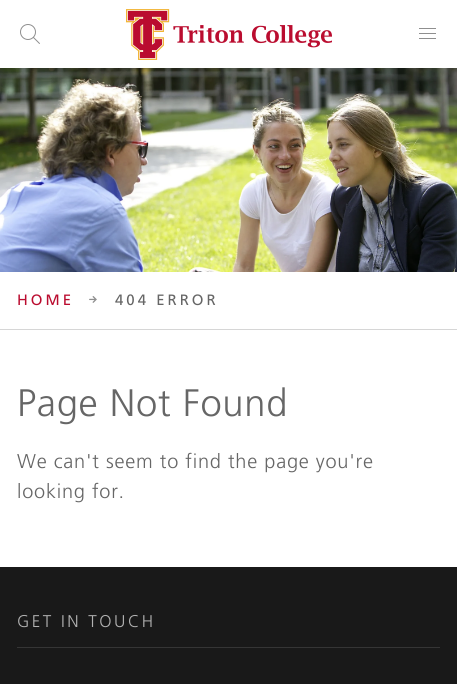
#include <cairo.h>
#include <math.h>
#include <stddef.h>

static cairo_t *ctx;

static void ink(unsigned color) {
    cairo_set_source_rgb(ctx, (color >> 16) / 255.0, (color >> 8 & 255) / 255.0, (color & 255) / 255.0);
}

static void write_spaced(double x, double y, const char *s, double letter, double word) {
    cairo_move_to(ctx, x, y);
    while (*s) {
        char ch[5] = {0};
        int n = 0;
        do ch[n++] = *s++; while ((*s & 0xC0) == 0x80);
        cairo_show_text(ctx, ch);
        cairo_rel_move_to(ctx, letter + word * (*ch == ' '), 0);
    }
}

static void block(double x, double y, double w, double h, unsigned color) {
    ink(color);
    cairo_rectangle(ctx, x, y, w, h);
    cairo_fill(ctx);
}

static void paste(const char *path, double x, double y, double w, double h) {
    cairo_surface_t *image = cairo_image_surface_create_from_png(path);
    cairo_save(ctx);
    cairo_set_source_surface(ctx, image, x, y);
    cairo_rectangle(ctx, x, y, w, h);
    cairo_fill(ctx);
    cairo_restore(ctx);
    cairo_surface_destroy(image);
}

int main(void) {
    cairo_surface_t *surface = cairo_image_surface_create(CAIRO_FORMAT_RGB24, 457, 684);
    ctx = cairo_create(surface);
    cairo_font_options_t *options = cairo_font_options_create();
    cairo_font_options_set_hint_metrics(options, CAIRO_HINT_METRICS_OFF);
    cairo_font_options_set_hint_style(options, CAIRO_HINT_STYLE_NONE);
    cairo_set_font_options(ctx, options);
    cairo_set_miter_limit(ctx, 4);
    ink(0xffffff);
    cairo_paint(ctx);
    paste("pic1.png", 20, 24, 20, 20);
    paste("pic2.png", 126, 9, 206, 51);
    block(419, 33, 17, 1, 0x8f8f8f);
    block(419, 28, 17, 1, 0x8f8f8f);
    block(419, 38, 17, 1, 0x8f8f8f);
    paste("pic3.png", 0, 68, 457, 204);
    block(0, 329, 457, 1, 0xd6d6d6);
    cairo_select_font_face(ctx, "Frutiger", CAIRO_FONT_SLANT_NORMAL, CAIRO_FONT_WEIGHT_NORMAL);
    cairo_set_font_size(ctx, 15);
    ink(0xba0c2f);
    write_spaced(17, 305, "HOME", 3, 0);
    paste("pic4.png", 89, 296, 8, 7);
    ink(0x666666);
    write_spaced(115, 305, "404 ERROR", 3, 0);
    cairo_select_font_face(ctx, "Frutiger Light", CAIRO_FONT_SLANT_NORMAL, CAIRO_FONT_WEIGHT_NORMAL);
    cairo_set_font_size(ctx, 38.25);
    write_spaced(17, 416, "Page Not Found", 0.7, 0);
    cairo_set_font_size(ctx, 20);
    write_spaced(17, 468, "We can't seem to find the page you're", 0.75, 0);
    write_spaced(17, 498, "looking for.", 0.75, 0);
    block(0, 567, 457, 117, 0x191919);
    block(17, 647, 423, 1, 0x353535);
    cairo_set_font_size(ctx, 17);
    ink(0xb2b2b2);
    write_spaced(17, 627, "GET IN TOUCH", 2.5, 0);
    cairo_surface_write_to_png(surface, "screenshot.png");
    cairo_font_options_destroy(options);
    cairo_destroy(ctx);
    cairo_surface_destroy(surface);
    return 0;
}
